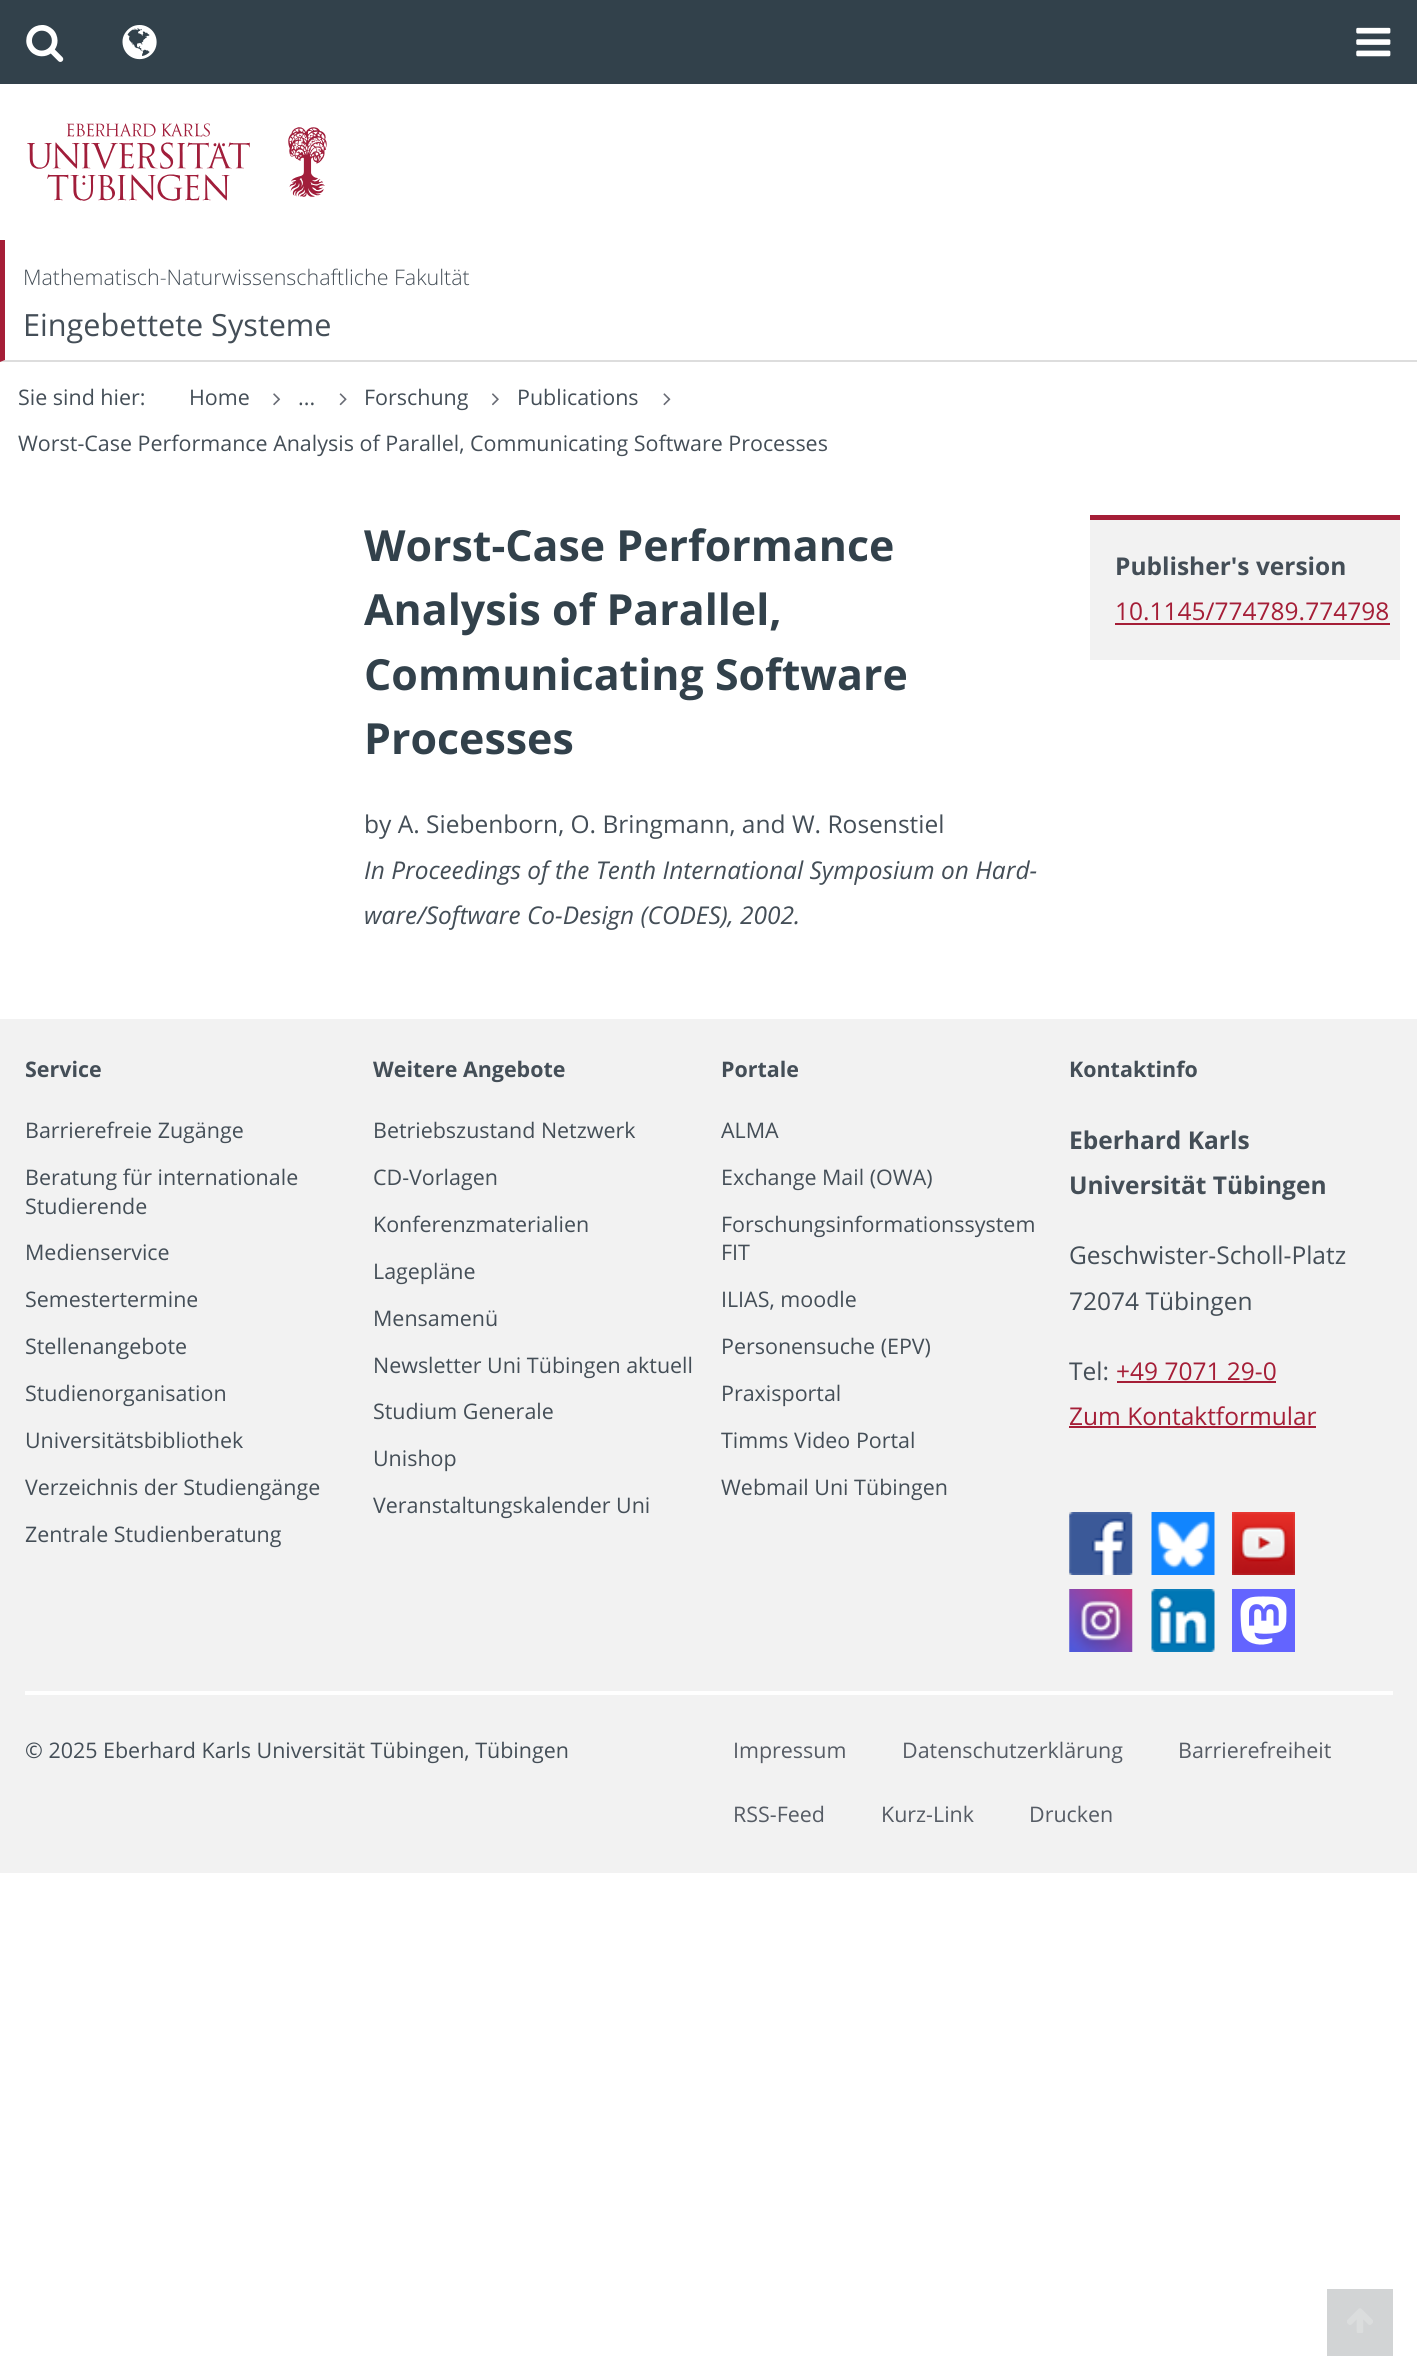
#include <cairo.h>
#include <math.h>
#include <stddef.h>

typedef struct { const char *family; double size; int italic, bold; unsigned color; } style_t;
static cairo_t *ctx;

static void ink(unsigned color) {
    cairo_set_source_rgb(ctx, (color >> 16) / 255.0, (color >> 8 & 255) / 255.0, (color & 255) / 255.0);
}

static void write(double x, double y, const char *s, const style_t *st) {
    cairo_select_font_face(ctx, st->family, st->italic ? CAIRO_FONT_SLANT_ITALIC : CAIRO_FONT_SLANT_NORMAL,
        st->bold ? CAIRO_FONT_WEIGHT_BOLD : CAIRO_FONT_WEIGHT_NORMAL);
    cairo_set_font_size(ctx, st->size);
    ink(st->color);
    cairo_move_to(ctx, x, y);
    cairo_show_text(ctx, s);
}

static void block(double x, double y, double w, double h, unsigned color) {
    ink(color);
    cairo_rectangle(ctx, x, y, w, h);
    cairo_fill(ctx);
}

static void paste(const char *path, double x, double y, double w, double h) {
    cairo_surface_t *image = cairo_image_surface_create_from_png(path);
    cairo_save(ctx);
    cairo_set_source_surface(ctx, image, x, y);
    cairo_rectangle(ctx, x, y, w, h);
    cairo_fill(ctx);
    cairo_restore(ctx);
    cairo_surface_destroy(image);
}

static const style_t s1 = {"Open Sans Light", 21.45, 0, 0, 0x444e57};
static const style_t s2 = {"Open Sans", 30.6, 0, 0, 0x444e57};
static const style_t s3 = {"Open Sans", 21.45, 0, 0, 0x444e57};
static const style_t s4 = {"Open Sans", 42.9, 0, 1, 0x32414b};
static const style_t s5 = {"Open Sans", 24.5, 0, 0, 0x444e57};
static const style_t s6 = {"Open Sans", 24.5, 1, 0, 0x444e57};
static const style_t s7 = {"Open Sans", 24.5, 0, 1, 0x444e57};
static const style_t s8 = {"Open Sans", 24.5, 0, 0, 0xa51e37};
static const style_t s9 = {"Open Sans", 21.45, 0, 1, 0x444e57};
static const style_t s10 = {"Open Sans", 21.45, 0, 0, 0x565c65};

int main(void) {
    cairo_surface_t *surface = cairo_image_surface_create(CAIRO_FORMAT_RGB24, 1417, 2379);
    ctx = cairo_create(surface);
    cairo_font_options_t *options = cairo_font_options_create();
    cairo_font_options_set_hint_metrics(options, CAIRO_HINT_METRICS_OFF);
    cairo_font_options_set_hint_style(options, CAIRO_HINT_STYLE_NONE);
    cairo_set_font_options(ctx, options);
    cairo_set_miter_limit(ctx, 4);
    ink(0xffffff);
    cairo_paint(ctx);
    block(0, 0, 1417, 84, 0x32414b);
    paste("pic1.png", 26, 25, 38, 37);
    paste("pic2.png", 122, 25, 35, 35);
    paste("pic3.png", 1356, 27, 35, 30);
    paste("pic4.png", 27, 123, 300, 78);
    ink(0xdddddd);
    cairo_new_path(ctx);
    cairo_move_to(ctx, 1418, 362);
    cairo_line_to(ctx, 0, 362);
    cairo_line_to(ctx, 5, 360);
    cairo_line_to(ctx, 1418, 360);
    cairo_close_path(ctx);
    cairo_fill(ctx);
    ink(0xa51e37);
    cairo_new_path(ctx);
    cairo_move_to(ctx, 0, 362);
    cairo_line_to(ctx, 0, 240);
    cairo_line_to(ctx, 5, 240);
    cairo_line_to(ctx, 5, 360);
    cairo_close_path(ctx);
    cairo_fill(ctx);
    write(23, 285, "Mathematisch-Naturwissenschaftliche Fakultät", &s1);
    write(23, 336, "Eingebettete Systeme", &s2);
    write(189, 405, "Home", &s3);
    paste("pic5.png", 273, 393, 8, 13);
    write(298, 405, "...", &s3);
    paste("pic6.png", 339, 393, 8, 13);
    write(364, 405, "Forschung", &s3);
    paste("pic7.png", 492, 393, 7, 13);
    write(517, 405, "Publications", &s3);
    paste("pic8.png", 663, 393, 8, 13);
    write(18, 451, "Worst-Case Performance Analysis of Parallel, Communicating Software Processes", &s3);
    write(18, 405, "Sie sind hier:", &s3);
    write(364, 561, "Worst-Case Performance", &s4);
    write(364, 625, "Analysis of Parallel,", &s4);
    write(364, 690, "Communicating Software", &s4);
    write(364, 754, "Processes", &s4);
    write(364, 833, "by A. Siebenborn, O. Bringmann, and W. Rosenstiel", &s5);
    write(364, 879, "In Proceedings of the Tenth International Symposium on Hard-", &s6);
    write(364, 924, "ware/Software Co-Design (CODES), 2002.", &s6);
    block(1090, 520, 310, 140, 0xf2f2f2);
    block(1090, 515, 310, 5, 0xa51e37);
    write(1115, 575, "Publisher's version", &s7);
    write(1115, 620, "10.1145/774789.774798", &s8);
    block(1115, 623, 275, 2, 0xa51e37);
    block(0, 1019, 1417, 854, 0xf2f2f2);
    write(25, 1077, "Service", &s9);
    write(25, 1138, "Barrierefreie Zugänge", &s3);
    write(25, 1185, "Beratung für internationale", &s3);
    write(25, 1214, "Studierende", &s3);
    write(25, 1260, "Medienservice", &s3);
    write(25, 1307, "Semestertermine", &s3);
    write(25, 1354, "Stellenangebote", &s3);
    write(25, 1401, "Studienorganisation", &s3);
    write(25, 1448, "Universitätsbibliothek", &s3);
    write(25, 1495, "Verzeichnis der Studiengänge", &s3);
    write(25, 1542, "Zentrale Studienberatung", &s3);
    write(373, 1077, "Weitere Angebote", &s9);
    write(373, 1138, "Betriebszustand Netzwerk", &s3);
    write(373, 1185, "CD-Vorlagen", &s3);
    write(373, 1232, "Konferenzmaterialien", &s3);
    write(373, 1279, "Lagepläne", &s3);
    write(373, 1326, "Mensamenü", &s3);
    write(373, 1373, "Newsletter Uni Tübingen aktuell", &s3);
    write(373, 1419, "Studium Generale", &s3);
    write(373, 1466, "Unishop", &s3);
    write(373, 1513, "Veranstaltungskalender Uni", &s3);
    write(721, 1077, "Portale", &s9);
    write(721, 1138, "ALMA", &s3);
    write(721, 1185, "Exchange Mail (OWA)", &s3);
    write(721, 1232, "Forschungsinformationssystem", &s3);
    write(721, 1260, "FIT", &s3);
    write(721, 1307, "ILIAS, moodle", &s3);
    write(721, 1354, "Personensuche (EPV)", &s3);
    write(721, 1401, "Praxisportal", &s3);
    write(721, 1448, "Timms Video Portal", &s3);
    write(721, 1495, "Webmail Uni Tübingen", &s3);
    write(1069, 1077, "Kontaktinfo", &s9);
    write(1069, 1149, "Eberhard Karls", &s7);
    write(1069, 1194, "Universität Tübingen", &s7);
    write(1069, 1264, "Geschwister-Scholl-Platz", &s5);
    write(1069, 1310, "72074 Tübingen", &s5);
    write(1069, 1380, "Tel:", &s5);
    write(1116, 1380, "+49 7071 29-0", &s8);
    block(1117, 1381, 159, 2, 0xa51e37);
    write(1069, 1425, "Zum Kontaktformular", &s8);
    block(1069, 1426, 247, 2, 0xa51e37);
    paste("pic9.png", 1069, 1512, 64, 63);
    paste("pic10.png", 1151, 1512, 64, 63);
    paste("pic11.png", 1232, 1512, 63, 63);
    paste("pic12.png", 1069, 1589, 64, 63);
    paste("pic13.png", 1151, 1589, 64, 63);
    block(1232, 1589, 63, 63, 0x6364ff);
    paste("pic14.png", 1240, 1596, 47, 49);
    block(25, 1691, 1368, 4, 0xffffff);
    write(25, 1758, "© 2025 Eberhard Karls Universität Tübingen, Tübingen", &s3);
    write(733, 1758, "Impressum", &s10);
    write(902, 1758, "Datenschutzerklärung", &s10);
    write(1178, 1758, "Barrierefreiheit", &s10);
    write(733, 1822, "RSS-Feed", &s10);
    write(881, 1822, "Kurz-Link", &s10);
    write(1029, 1822, "Drucken", &s10);
    block(1327, 2289, 66, 67, 0xd2d4d5);
    paste("pic15.png", 1347, 2308, 26, 25);
    cairo_surface_write_to_png(surface, "screenshot.png");
    cairo_font_options_destroy(options);
    cairo_destroy(ctx);
    cairo_surface_destroy(surface);
    return 0;
}
